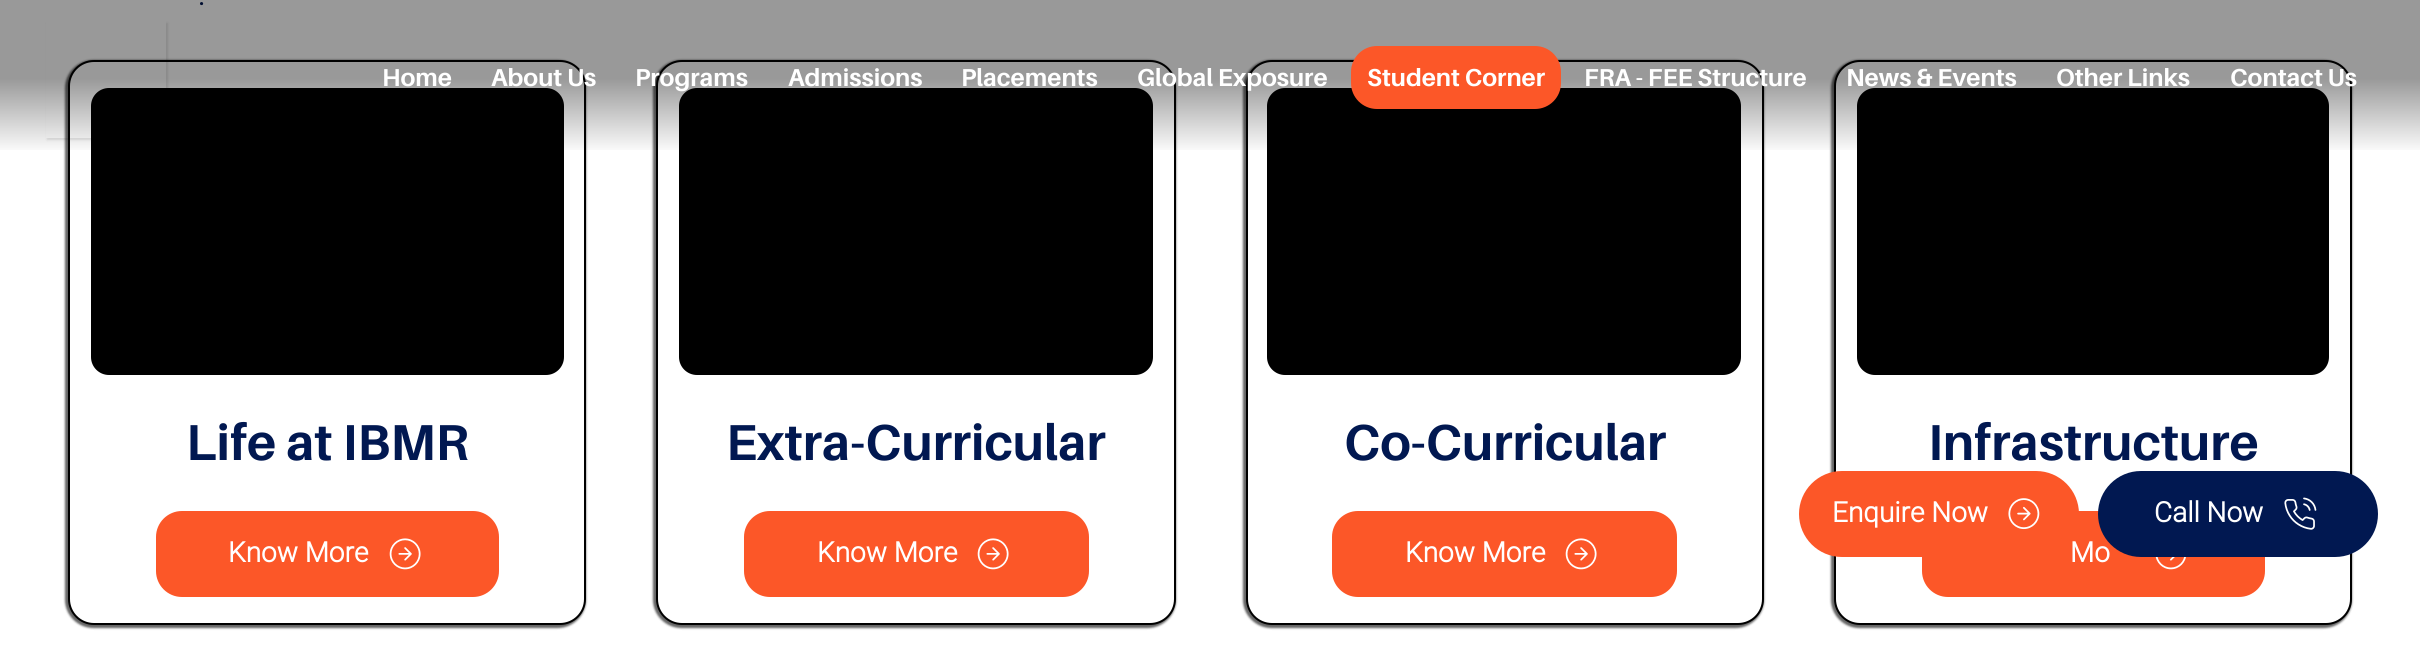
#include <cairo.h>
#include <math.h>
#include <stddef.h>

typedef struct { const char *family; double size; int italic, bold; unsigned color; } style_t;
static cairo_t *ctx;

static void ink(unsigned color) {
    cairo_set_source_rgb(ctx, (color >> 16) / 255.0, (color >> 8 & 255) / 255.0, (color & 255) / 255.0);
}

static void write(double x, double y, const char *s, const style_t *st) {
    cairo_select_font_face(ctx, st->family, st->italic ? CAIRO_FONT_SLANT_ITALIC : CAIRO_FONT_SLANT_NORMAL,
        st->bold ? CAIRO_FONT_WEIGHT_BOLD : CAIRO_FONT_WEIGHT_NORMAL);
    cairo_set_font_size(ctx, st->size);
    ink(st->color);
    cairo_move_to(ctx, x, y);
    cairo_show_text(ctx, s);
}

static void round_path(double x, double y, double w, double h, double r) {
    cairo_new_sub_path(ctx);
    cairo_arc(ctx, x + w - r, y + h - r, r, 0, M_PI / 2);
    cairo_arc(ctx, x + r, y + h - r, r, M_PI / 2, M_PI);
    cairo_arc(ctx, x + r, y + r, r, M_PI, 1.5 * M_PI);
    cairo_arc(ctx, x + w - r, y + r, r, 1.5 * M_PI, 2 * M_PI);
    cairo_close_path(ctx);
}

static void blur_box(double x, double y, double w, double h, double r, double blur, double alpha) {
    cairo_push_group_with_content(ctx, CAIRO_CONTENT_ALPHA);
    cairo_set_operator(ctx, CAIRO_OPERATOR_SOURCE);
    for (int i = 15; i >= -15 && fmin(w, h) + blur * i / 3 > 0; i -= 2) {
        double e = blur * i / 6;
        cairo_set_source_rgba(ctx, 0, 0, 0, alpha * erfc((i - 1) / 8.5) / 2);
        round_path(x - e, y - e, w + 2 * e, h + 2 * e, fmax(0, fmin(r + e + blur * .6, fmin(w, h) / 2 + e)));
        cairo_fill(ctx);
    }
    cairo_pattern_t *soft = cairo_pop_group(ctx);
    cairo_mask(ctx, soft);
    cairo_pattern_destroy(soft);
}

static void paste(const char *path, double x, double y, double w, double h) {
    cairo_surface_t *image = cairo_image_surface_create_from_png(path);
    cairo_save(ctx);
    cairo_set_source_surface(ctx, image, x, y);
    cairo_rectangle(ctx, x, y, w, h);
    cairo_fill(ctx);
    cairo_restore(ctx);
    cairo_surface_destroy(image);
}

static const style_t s1 = {"Roboto", 28, 0, 1, 0x011851};
static const style_t s2 = {"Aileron", 50.5, 0, 1, 0x011851};
static const style_t s3 = {"Roboto", 28, 0, 1, 0xffffff};
static const style_t s4 = {"Aileron", 24.5, 0, 1, 0xffffff};

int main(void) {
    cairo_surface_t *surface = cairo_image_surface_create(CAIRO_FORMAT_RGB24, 2420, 653);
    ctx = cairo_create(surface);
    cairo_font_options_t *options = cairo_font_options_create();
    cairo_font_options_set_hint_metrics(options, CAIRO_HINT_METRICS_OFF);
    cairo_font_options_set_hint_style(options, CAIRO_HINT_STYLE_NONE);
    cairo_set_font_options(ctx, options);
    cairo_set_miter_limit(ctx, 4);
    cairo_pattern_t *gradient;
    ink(0xffffff);
    cairo_paint(ctx);
    write(198, 5, ".", &s1);
    ink(0x000000);
    blur_box(65, 60, 521, 568, 28, 1, 0.6);
    ink(0xffffff);
    round_path(69, 61, 516, 563, 25);
    cairo_fill_preserve(ctx);
    ink(0x000000);
    cairo_stroke(ctx);
    round_path(91, 88, 473, 287, 18);
    cairo_fill(ctx);
    write(186, 460, "Life at IBMR", &s2);
    ink(0xfc5728);
    round_path(158, 513, 339, 82, 24);
    cairo_fill_preserve(ctx);
    cairo_set_line_width(ctx, 4);
    cairo_stroke(ctx);
    write(228, 562, "Know More", &s3);
    paste("pic1.png", 389, 538, 32, 32);
    ink(0x000000);
    blur_box(653, 60, 523, 568, 28, 1, 0.6);
    ink(0xffffff);
    round_path(657, 61, 518, 563, 25);
    cairo_fill_preserve(ctx);
    ink(0x000000);
    cairo_set_line_width(ctx, 2);
    cairo_stroke(ctx);
    round_path(679, 88, 474, 287, 18);
    cairo_fill(ctx);
    write(726, 460, "Extra-Curricular", &s2);
    ink(0xfc5728);
    round_path(746, 513, 341, 82, 24);
    cairo_fill_preserve(ctx);
    cairo_set_line_width(ctx, 4);
    cairo_stroke(ctx);
    write(817, 562, "Know More", &s3);
    paste("pic1.png", 977, 538, 32, 32);
    ink(0x000000);
    blur_box(1243, 60, 521, 568, 28, 1, 0.6);
    ink(0xffffff);
    round_path(1247, 61, 516, 563, 25);
    cairo_fill_preserve(ctx);
    ink(0x000000);
    cairo_set_line_width(ctx, 2);
    cairo_stroke(ctx);
    round_path(1267, 88, 474, 287, 18);
    cairo_fill(ctx);
    write(1344, 460, "Co-Curricular", &s2);
    ink(0xfc5728);
    round_path(1334, 513, 341, 82, 24);
    cairo_fill_preserve(ctx);
    cairo_set_line_width(ctx, 4);
    cairo_stroke(ctx);
    write(1405, 562, "Know More", &s3);
    paste("pic1.png", 1565, 538, 32, 32);
    ink(0x000000);
    blur_box(1831, 60, 521, 568, 28, 1, 0.6);
    ink(0xffffff);
    round_path(1835, 61, 516, 563, 25);
    cairo_fill_preserve(ctx);
    ink(0x000000);
    cairo_set_line_width(ctx, 2);
    cairo_stroke(ctx);
    round_path(1857, 88, 472, 287, 18);
    cairo_fill(ctx);
    write(1928, 460, "Infrastructure", &s2);
    ink(0xfc5728);
    round_path(1924, 513, 339, 82, 24);
    cairo_fill_preserve(ctx);
    cairo_set_line_width(ctx, 4);
    cairo_stroke(ctx);
    write(2070, 562, "Mo", &s3);
    paste("pic2.png", 2155, 557, 31, 13);
    gradient = cairo_pattern_create_linear(1210, 0, 1210, 154);
    cairo_pattern_add_color_stop_rgba(gradient, 0.51, 0, 0, 0, 0.4);
    cairo_pattern_add_color_stop_rgba(gradient, 1, 0, 0, 0, 0);
    cairo_set_source(ctx, gradient);
    cairo_pattern_destroy(gradient);
    cairo_rectangle(ctx, 0, 0, 2420, 150);
    cairo_fill(ctx);
    cairo_save(ctx);
    cairo_set_fill_rule(ctx, CAIRO_FILL_RULE_EVEN_ODD);
    cairo_new_path(ctx);
    cairo_move_to(ctx, 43, 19);
    cairo_line_to(ctx, 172, 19);
    cairo_line_to(ctx, 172, 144);
    cairo_line_to(ctx, 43, 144);
    cairo_close_path(ctx);
    cairo_move_to(ctx, 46, 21);
    cairo_line_to(ctx, 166, 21);
    cairo_line_to(ctx, 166, 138);
    cairo_line_to(ctx, 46, 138);
    cairo_close_path(ctx);
    cairo_clip(ctx);
    ink(0x000000);
    blur_box(47, 23, 121, 117, 0, 1, 0.1);
    cairo_restore(ctx);
    write(382, 86, "Home", &s4);
    write(491, 86, "About Us", &s4);
    write(635, 86, "Programs", &s4);
    write(788, 86, "Admissions", &s4);
    write(961, 86, "Placements", &s4);
    write(1137, 86, "Global Exposure", &s4);
    ink(0xfc5728);
    round_path(1351, 46, 210, 63, 26);
    cairo_fill(ctx);
    write(1367, 86, "Student Corner", &s4);
    write(1584, 86, "FRA - FEE Structure", &s4);
    write(1846, 86, "News & Events", &s4);
    write(2056, 86, "Other Links", &s4);
    write(2230, 86, "Contact Us", &s4);
    ink(0xfc5728);
    round_path(1800, 472, 278, 84, 42);
    cairo_fill_preserve(ctx);
    cairo_set_line_width(ctx, 2);
    cairo_stroke(ctx);
    write(1832, 522, "Enquire Now", &s3);
    paste("pic3.png", 2008, 498, 32, 32);
    ink(0x011851);
    round_path(2098, 471, 280, 86, 43);
    cairo_fill(ctx);
    write(2154, 522, "Call Now", &s3);
    paste("pic4.png", 2284, 497, 33, 33);
    cairo_surface_write_to_png(surface, "screenshot.png");
    cairo_font_options_destroy(options);
    cairo_destroy(ctx);
    cairo_surface_destroy(surface);
    return 0;
}
